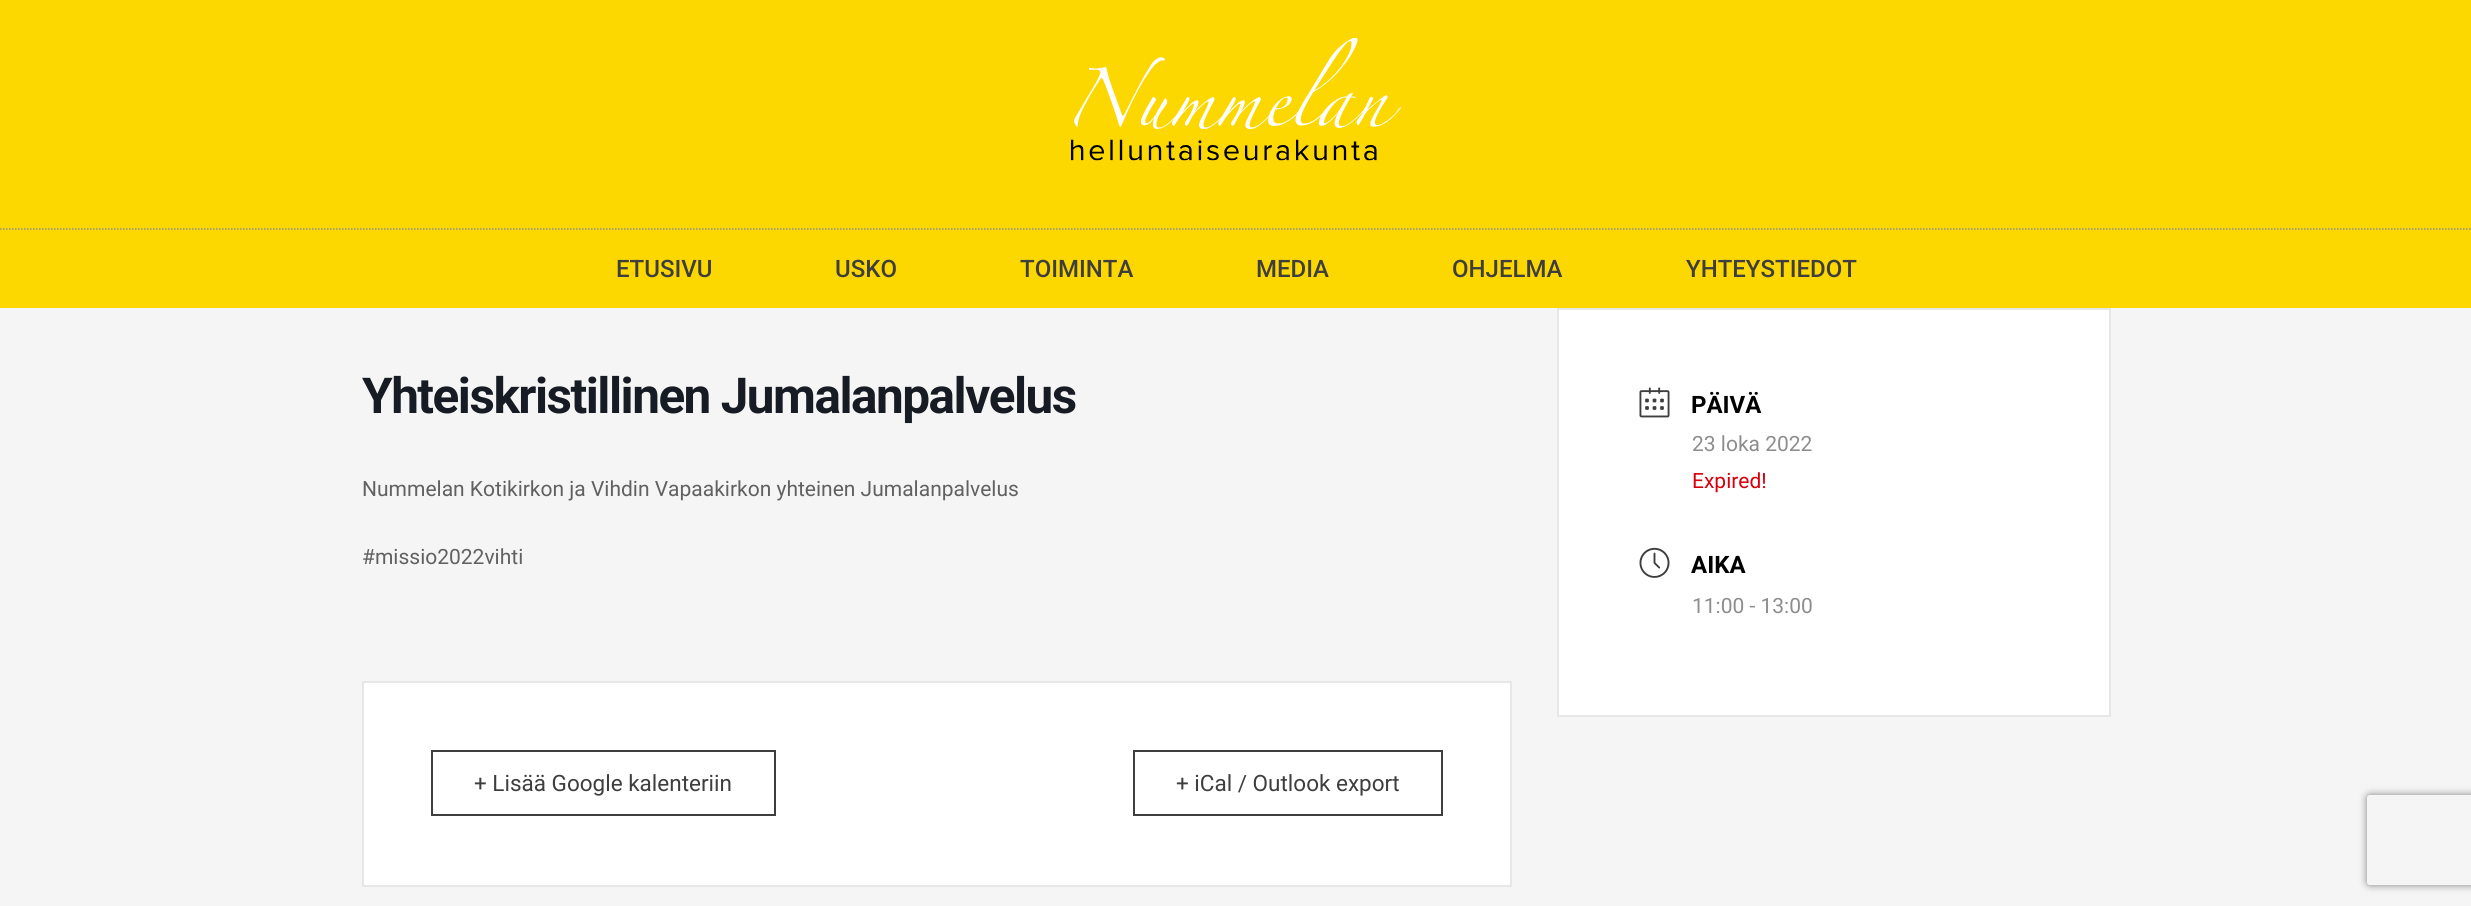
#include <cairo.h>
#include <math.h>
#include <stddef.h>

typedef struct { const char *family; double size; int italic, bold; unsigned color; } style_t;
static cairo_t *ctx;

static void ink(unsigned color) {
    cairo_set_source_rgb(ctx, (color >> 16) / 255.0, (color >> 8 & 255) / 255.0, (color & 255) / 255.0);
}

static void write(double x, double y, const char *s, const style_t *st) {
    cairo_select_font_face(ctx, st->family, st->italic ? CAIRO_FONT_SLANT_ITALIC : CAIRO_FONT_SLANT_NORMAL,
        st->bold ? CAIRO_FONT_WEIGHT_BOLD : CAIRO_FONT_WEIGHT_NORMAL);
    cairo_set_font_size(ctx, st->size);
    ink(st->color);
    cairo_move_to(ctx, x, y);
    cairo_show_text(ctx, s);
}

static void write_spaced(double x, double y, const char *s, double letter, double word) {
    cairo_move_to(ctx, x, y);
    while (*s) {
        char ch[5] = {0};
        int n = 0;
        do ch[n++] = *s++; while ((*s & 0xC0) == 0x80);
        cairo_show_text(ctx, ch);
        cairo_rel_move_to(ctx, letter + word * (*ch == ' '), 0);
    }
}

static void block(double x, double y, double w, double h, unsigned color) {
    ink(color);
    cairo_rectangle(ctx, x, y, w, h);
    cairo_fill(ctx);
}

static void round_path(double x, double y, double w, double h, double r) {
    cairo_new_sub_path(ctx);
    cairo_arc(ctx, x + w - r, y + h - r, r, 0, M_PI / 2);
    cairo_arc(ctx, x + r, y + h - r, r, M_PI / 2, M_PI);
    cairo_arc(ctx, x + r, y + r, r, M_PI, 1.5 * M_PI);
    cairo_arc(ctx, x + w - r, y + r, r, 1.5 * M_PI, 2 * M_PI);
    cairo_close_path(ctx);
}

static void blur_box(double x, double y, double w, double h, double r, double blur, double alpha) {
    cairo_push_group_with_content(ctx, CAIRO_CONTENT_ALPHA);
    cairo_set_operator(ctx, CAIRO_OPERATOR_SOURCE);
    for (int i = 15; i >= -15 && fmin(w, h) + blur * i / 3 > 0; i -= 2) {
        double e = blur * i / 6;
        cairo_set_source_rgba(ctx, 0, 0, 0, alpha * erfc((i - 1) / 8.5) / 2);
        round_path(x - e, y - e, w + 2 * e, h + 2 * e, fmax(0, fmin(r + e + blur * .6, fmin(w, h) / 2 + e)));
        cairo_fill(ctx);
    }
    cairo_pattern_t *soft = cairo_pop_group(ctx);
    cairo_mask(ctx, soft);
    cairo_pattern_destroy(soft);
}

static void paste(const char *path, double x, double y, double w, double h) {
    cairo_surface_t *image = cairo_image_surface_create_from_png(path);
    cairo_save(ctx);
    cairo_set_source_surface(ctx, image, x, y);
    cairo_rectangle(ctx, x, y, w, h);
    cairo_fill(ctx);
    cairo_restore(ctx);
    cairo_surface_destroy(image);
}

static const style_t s1 = {"Roboto Medium", 24, 0, 0, 0x3e3e3e};
static const style_t s2 = {"Roboto", 21, 0, 0, 0x616161};
static const style_t s3 = {"Roboto", 22.5, 0, 0, 0x3e3e3e};
static const style_t s4 = {"Roboto", 24, 0, 1, 0x000000};
static const style_t s5 = {"Roboto", 21, 0, 0, 0x8d8d8d};
static const style_t s6 = {"Roboto", 21, 0, 0, 0xd8000c};

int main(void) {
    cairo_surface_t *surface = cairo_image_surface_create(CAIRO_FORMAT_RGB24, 2471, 906);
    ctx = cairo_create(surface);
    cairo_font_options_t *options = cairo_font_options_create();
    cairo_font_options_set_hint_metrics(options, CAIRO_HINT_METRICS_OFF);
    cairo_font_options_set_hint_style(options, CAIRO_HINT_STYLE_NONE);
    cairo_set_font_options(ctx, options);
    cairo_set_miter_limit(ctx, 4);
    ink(0xf5f5f5);
    cairo_paint(ctx);
    block(0, 0, 2471, 308, 0xfdd700);
    paste("pic1.png", 1071, 38, 330, 123);
    cairo_new_path(ctx);
    cairo_move_to(ctx, 0, 229);
    cairo_line_to(ctx, 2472, 229);
    ink(0x8e8e8e);
    cairo_set_line_width(ctx, 1.5);
    cairo_set_dash(ctx, (double[]){1.5, 1.5}, 2, 0);
    cairo_stroke(ctx);
    write(616, 277, "ETUSIVU", &s1);
    write(835, 277, "USKO", &s1);
    write(1020, 277, "TOIMINTA", &s1);
    write(1256, 277, "MEDIA", &s1);
    write(1452, 277, "OHJELMA", &s1);
    write(1686, 277, "YHTEYSTIEDOT", &s1);
    cairo_select_font_face(ctx, "Roboto", CAIRO_FONT_SLANT_NORMAL, CAIRO_FONT_WEIGHT_BOLD);
    cairo_set_font_size(ctx, 49.5);
    ink(0x171c24);
    write_spaced(362, 413, "Yhteiskristillinen Jumalanpalvelus", -1.5, 0);
    write(362, 496, "Nummelan Kotikirkon ja Vihdin Vapaakirkon yhteinen Jumalanpalvelus", &s2);
    write(362, 564, "#missio2022vihti", &s2);
    ink(0xffffff);
    cairo_rectangle(ctx, 363, 682, 1148, 204);
    cairo_fill_preserve(ctx);
    ink(0xe6e7e8);
    cairo_set_line_width(ctx, 2);
    cairo_set_dash(ctx, NULL, 0, 0);
    cairo_stroke(ctx);
    cairo_rectangle(ctx, 432, 751, 343, 64);
    ink(0x3e3e3e);
    cairo_stroke(ctx);
    write(474, 791, "+ Lisää Google kalenteriin", &s3);
    cairo_rectangle(ctx, 1134, 751, 308, 64);
    cairo_stroke(ctx);
    write(1176, 791, "+ iCal / Outlook export", &s3);
    ink(0xffffff);
    cairo_rectangle(ctx, 1558, 309, 552, 407);
    cairo_fill_preserve(ctx);
    ink(0xe6e7e8);
    cairo_stroke(ctx);
    paste("pic2.png", 1639, 387, 31, 31);
    write(1691, 413, "PÄIVÄ", &s4);
    write(1692, 451, "23 loka 2022", &s5);
    write(1692, 488, "Expired!", &s6);
    paste("pic3.png", 1639, 547, 31, 31);
    write(1691, 573, "AIKA", &s4);
    write(1692, 613, "11:00 - 13:00", &s5);
    cairo_save(ctx);
    cairo_set_fill_rule(ctx, CAIRO_FILL_RULE_EVEN_ODD);
    cairo_new_path(ctx);
    cairo_move_to(ctx, 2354, 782);
    cairo_line_to(ctx, 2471, 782);
    cairo_line_to(ctx, 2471, 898);
    cairo_line_to(ctx, 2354, 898);
    cairo_close_path(ctx);
    cairo_move_to(ctx, 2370, 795);
    cairo_line_to(ctx, 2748, 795);
    cairo_curve_to(ctx, 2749.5, 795, 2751, 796.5, 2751, 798);
    cairo_line_to(ctx, 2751, 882);
    cairo_curve_to(ctx, 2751, 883.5, 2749.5, 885, 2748, 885);
    cairo_line_to(ctx, 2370, 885);
    cairo_curve_to(ctx, 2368.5, 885, 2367, 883.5, 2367, 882);
    cairo_line_to(ctx, 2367, 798);
    cairo_curve_to(ctx, 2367, 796.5, 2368.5, 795, 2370, 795);
    cairo_close_path(ctx);
    cairo_clip(ctx);
    ink(0x808080);
    blur_box(2367, 795, 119, 90, 3, 4, 1);
    cairo_restore(ctx);
    cairo_surface_write_to_png(surface, "screenshot.png");
    cairo_font_options_destroy(options);
    cairo_destroy(ctx);
    cairo_surface_destroy(surface);
    return 0;
}
